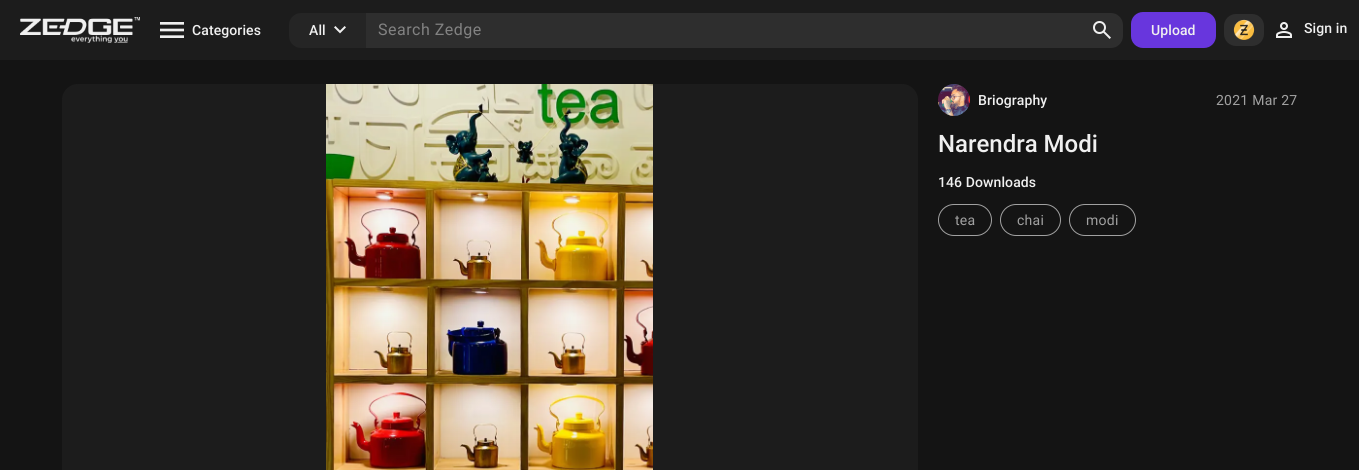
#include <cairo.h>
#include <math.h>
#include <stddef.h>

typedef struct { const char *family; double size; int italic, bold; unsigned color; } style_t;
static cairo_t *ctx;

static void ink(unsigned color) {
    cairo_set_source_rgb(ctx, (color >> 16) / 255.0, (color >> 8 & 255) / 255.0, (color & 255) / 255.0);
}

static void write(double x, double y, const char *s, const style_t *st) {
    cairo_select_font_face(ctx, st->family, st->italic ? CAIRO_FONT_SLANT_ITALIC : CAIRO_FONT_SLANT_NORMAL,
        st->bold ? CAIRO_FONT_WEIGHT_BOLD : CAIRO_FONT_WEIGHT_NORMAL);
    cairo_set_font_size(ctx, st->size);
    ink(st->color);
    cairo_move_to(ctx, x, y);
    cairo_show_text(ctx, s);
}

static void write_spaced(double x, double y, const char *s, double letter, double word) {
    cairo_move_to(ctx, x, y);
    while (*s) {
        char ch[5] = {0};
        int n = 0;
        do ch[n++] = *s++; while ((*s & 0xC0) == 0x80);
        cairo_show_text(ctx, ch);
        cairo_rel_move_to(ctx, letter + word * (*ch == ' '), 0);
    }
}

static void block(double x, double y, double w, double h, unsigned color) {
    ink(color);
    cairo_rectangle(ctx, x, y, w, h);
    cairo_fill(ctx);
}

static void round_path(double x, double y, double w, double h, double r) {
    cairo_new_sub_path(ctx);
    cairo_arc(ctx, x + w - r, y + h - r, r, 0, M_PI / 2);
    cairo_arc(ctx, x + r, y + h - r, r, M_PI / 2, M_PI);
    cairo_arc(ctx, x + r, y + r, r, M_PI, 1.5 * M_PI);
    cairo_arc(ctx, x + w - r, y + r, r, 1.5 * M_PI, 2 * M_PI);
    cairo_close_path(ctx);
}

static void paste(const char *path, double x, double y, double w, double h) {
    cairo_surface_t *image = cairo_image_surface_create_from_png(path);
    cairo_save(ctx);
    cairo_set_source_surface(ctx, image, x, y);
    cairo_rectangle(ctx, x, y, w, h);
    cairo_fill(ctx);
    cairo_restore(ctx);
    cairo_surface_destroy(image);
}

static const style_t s1 = {"Roboto Medium", 24, 0, 0, 0xf0f0f0};

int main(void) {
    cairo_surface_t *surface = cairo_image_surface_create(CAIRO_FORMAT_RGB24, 1359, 470);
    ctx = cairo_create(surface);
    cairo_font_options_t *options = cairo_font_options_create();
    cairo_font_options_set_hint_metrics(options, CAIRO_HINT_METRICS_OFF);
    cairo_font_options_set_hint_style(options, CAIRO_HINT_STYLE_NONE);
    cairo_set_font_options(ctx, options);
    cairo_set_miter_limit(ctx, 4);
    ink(0x141414);
    cairo_paint(ctx);
    block(0, 0, 1359, 60, 0x1c1c1c);
    paste("pic1.png", 20, 17, 120, 18);
    paste("pic2.png", 71, 35, 57, 8);
    paste("pic3.png", 160, 22, 24, 16);
    cairo_select_font_face(ctx, "Roboto Medium", CAIRO_FONT_SLANT_NORMAL, CAIRO_FONT_WEIGHT_NORMAL);
    cairo_set_font_size(ctx, 14);
    ink(0xf0f0f0);
    write_spaced(192, 35, "Categories", 0.1, 0);
    ink(0x252525);
    cairo_new_path(ctx);
    cairo_move_to(ctx, 301, 13);
    cairo_line_to(ctx, 366, 13);
    cairo_line_to(ctx, 366, 48);
    cairo_line_to(ctx, 301, 48);
    cairo_curve_to(ctx, 294.5, 48, 289, 42.5, 289, 36);
    cairo_line_to(ctx, 289, 25);
    cairo_curve_to(ctx, 289, 18.5, 294.5, 13, 301, 13);
    cairo_close_path(ctx);
    cairo_fill(ctx);
    ink(0xf0f0f0);
    write_spaced(309, 35, "All", 0.1, 0);
    paste("pic4.png", 334, 26, 12, 8);
    ink(0x2e2e2e);
    cairo_new_path(ctx);
    cairo_move_to(ctx, 366, 13);
    cairo_line_to(ctx, 1111, 13);
    cairo_curve_to(ctx, 1117.5, 13, 1123, 18.5, 1123, 25);
    cairo_line_to(ctx, 1123, 36);
    cairo_curve_to(ctx, 1123, 42.5, 1117.5, 48, 1111, 48);
    cairo_line_to(ctx, 366, 48);
    cairo_close_path(ctx);
    cairo_fill(ctx);
    cairo_select_font_face(ctx, "Roboto", CAIRO_FONT_SLANT_NORMAL, CAIRO_FONT_WEIGHT_NORMAL);
    cairo_set_font_size(ctx, 16);
    ink(0x828282);
    write_spaced(378, 35, "Search Zedge", 0.5, 0);
    paste("pic5.png", 1093, 21, 18, 18);
    ink(0x6836dd);
    round_path(1131, 12, 85, 36, 12);
    cairo_fill(ctx);
    cairo_select_font_face(ctx, "Roboto Medium", CAIRO_FONT_SLANT_NORMAL, CAIRO_FONT_WEIGHT_NORMAL);
    cairo_set_font_size(ctx, 14);
    ink(0xf0f0f0);
    write_spaced(1151, 35, "Upload", 0.1, 0);
    ink(0x2e2e2e);
    round_path(1224, 14, 40, 32, 12);
    cairo_fill(ctx);
    paste("pic6.png", 1233, 19, 22, 21);
    paste("pic7.png", 1276, 22, 16, 16);
    ink(0xf0f0f0);
    write_spaced(1304, 33, "Sign in", 0.1, 0);
    ink(0x1c1c1c);
    round_path(62, 84, 856, 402, 16);
    cairo_fill(ctx);
    paste("pic8.png", 326, 84, 327, 386);
    paste("pic9.png", 938, 84, 32, 32);
    ink(0xf0f0f0);
    write_spaced(978, 105, "Briography", 0.1, 0);
    cairo_select_font_face(ctx, "Roboto", CAIRO_FONT_SLANT_NORMAL, CAIRO_FONT_WEIGHT_NORMAL);
    ink(0xa1a1a1);
    write_spaced(1216, 105, "2021 Mar 27", 0.25, 0);
    write(938, 152, "Narendra Modi", &s1);
    cairo_set_font_size(ctx, 14);
    write_spaced(938, 187, "146 Downloads", 0.1, 0);
    round_path(938.5, 204.5, 53, 31, 15.5);
    ink(0xa1a1a1);
    cairo_set_line_width(ctx, 1);
    cairo_stroke(ctx);
    cairo_select_font_face(ctx, "Roboto", CAIRO_FONT_SLANT_NORMAL, CAIRO_FONT_WEIGHT_NORMAL);
    write_spaced(955, 225, "tea", 0.25, 0);
    round_path(1000.5, 204.5, 60, 31, 15.5);
    cairo_stroke(ctx);
    write_spaced(1017, 225, "chai", 0.25, 0);
    round_path(1069.5, 204.5, 66, 31, 15.5);
    cairo_stroke(ctx);
    write_spaced(1086, 225, "modi", 0.25, 0);
    cairo_surface_write_to_png(surface, "screenshot.png");
    cairo_font_options_destroy(options);
    cairo_destroy(ctx);
    cairo_surface_destroy(surface);
    return 0;
}
